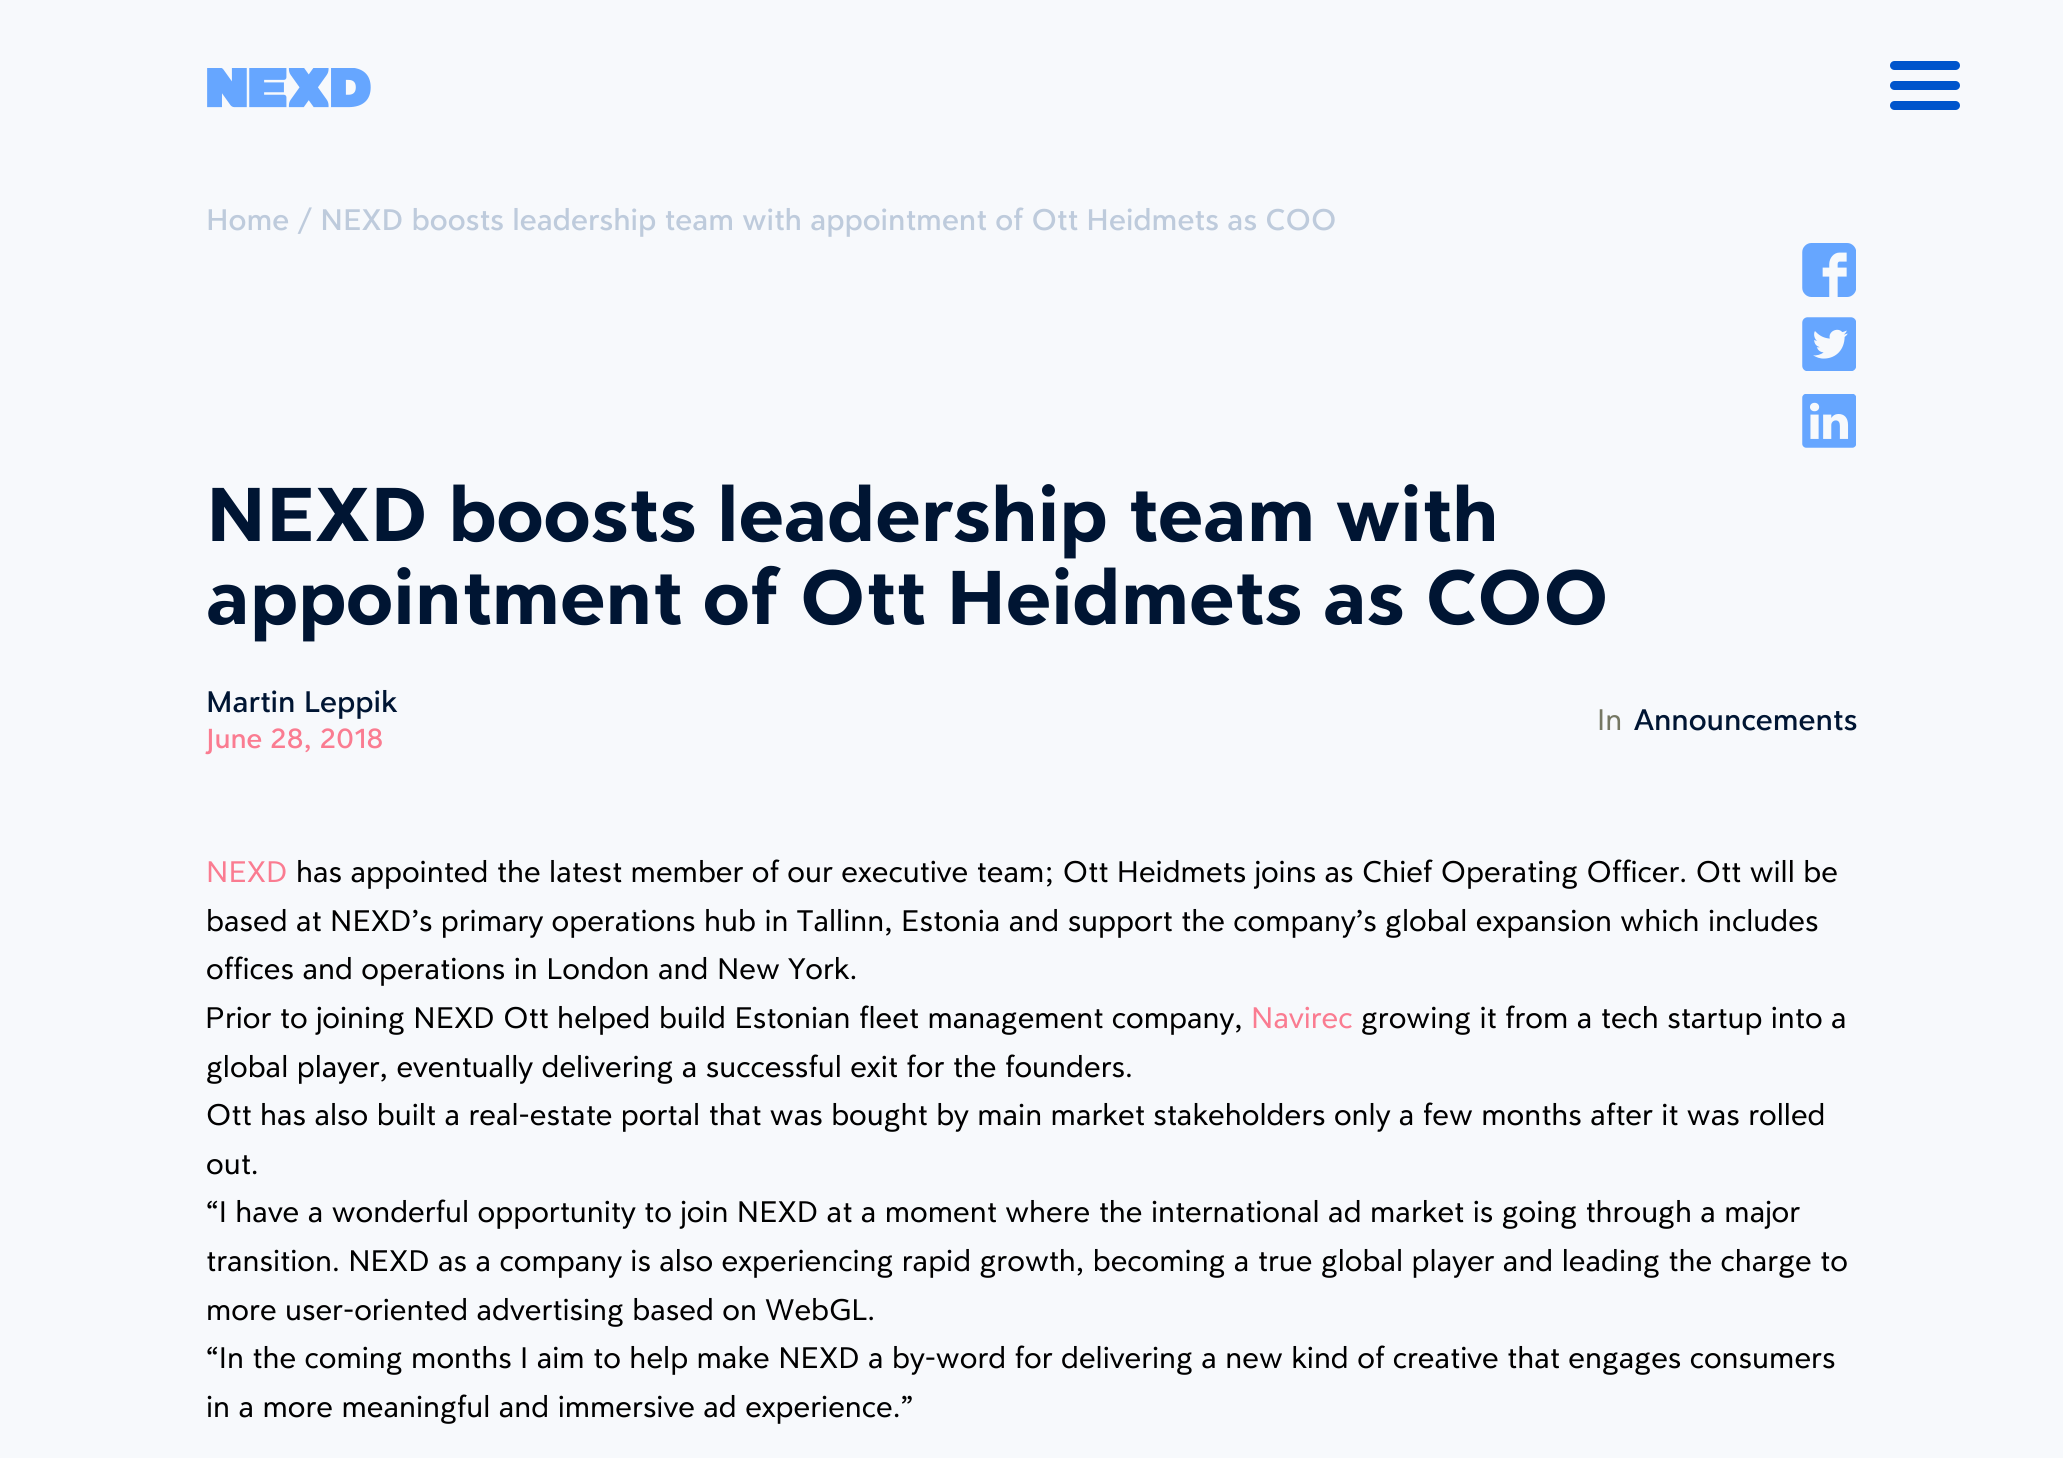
#include <cairo.h>
#include <math.h>
#include <stddef.h>

typedef struct { const char *family; double size; int italic, bold; unsigned color; } style_t;
static cairo_t *ctx;

static void ink(unsigned color) {
    cairo_set_source_rgb(ctx, (color >> 16) / 255.0, (color >> 8 & 255) / 255.0, (color & 255) / 255.0);
}

static void write(double x, double y, const char *s, const style_t *st) {
    cairo_select_font_face(ctx, st->family, st->italic ? CAIRO_FONT_SLANT_ITALIC : CAIRO_FONT_SLANT_NORMAL,
        st->bold ? CAIRO_FONT_WEIGHT_BOLD : CAIRO_FONT_WEIGHT_NORMAL);
    cairo_set_font_size(ctx, st->size);
    ink(st->color);
    cairo_move_to(ctx, x, y);
    cairo_show_text(ctx, s);
}

static void round_path(double x, double y, double w, double h, double r) {
    cairo_new_sub_path(ctx);
    cairo_arc(ctx, x + w - r, y + h - r, r, 0, M_PI / 2);
    cairo_arc(ctx, x + r, y + h - r, r, M_PI / 2, M_PI);
    cairo_arc(ctx, x + r, y + r, r, M_PI, 1.5 * M_PI);
    cairo_arc(ctx, x + w - r, y + r, r, 1.5 * M_PI, 2 * M_PI);
    cairo_close_path(ctx);
}

static void paste(const char *path, double x, double y, double w, double h) {
    cairo_surface_t *image = cairo_image_surface_create_from_png(path);
    cairo_save(ctx);
    cairo_set_source_surface(ctx, image, x, y);
    cairo_rectangle(ctx, x, y, w, h);
    cairo_fill(ctx);
    cairo_restore(ctx);
    cairo_surface_destroy(image);
}

static const style_t s1 = {"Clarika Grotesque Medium", 32.4, 0, 0, 0xbecbdc};
static const style_t s2 = {"Clarika Grotesque", 83, 0, 1, 0x001533};
static const style_t s3 = {"Clarika Grotesque Medium", 32.4, 0, 0, 0x001533};
static const style_t s4 = {"Clarika Grotesque Medium", 30, 0, 0, 0xfa7c91};
static const style_t s5 = {"Clarika Grotesque", 32.4, 0, 0, 0x757763};
static const style_t s6 = {"Clarika Grotesque", 32.4, 0, 0, 0xfa7c91};
static const style_t s7 = {"Clarika Grotesque", 32.4, 0, 0, 0x000000};

int main(void) {
    cairo_surface_t *surface = cairo_image_surface_create(CAIRO_FORMAT_RGB24, 2063, 1458);
    ctx = cairo_create(surface);
    cairo_font_options_t *options = cairo_font_options_create();
    cairo_font_options_set_hint_metrics(options, CAIRO_HINT_METRICS_OFF);
    cairo_font_options_set_hint_style(options, CAIRO_HINT_STYLE_NONE);
    cairo_set_font_options(ctx, options);
    cairo_set_miter_limit(ctx, 4);
    ink(0xf7f9fc);
    cairo_paint(ctx);
    paste("pic1.png", 207, 68, 164, 40);
    ink(0x0055cc);
    round_path(1890, 61, 70, 9, 4.5);
    cairo_fill(ctx);
    round_path(1890, 81, 70, 9, 4.5);
    cairo_fill(ctx);
    round_path(1890, 101, 70, 9, 4.5);
    cairo_fill(ctx);
    write(206, 230, "Home / NEXD boosts leadership team with appointment of Ott Heidmets as COO", &s1);
    paste("pic2.png", 1802, 243, 54, 54);
    paste("pic3.png", 1802, 317, 54, 54);
    paste("pic4.png", 1802, 394, 54, 54);
    write(206, 541, "NEXD boosts leadership team with", &s2);
    write(206, 624, "appointment of Ott Heidmets as COO", &s2);
    write(206, 712, "Martin Leppik", &s3);
    write(206, 748, "June 28, 2018", &s4);
    write(1597, 730, "In", &s5);
    write(1634, 730, "Announcements", &s3);
    write(206, 882, "NEXD", &s6);
    write(296, 882, "has appointed the latest member of our executive team; Ott Heidmets joins as Chief Operating Officer. Ott will be", &s7);
    write(206, 931, "based at NEXD’s primary operations hub in Tallinn, Estonia and support the company’s global expansion which includes", &s7);
    write(206, 979, "offices and operations in London and New York.", &s7);
    write(206, 1028, "Prior to joining NEXD Ott helped build Estonian fleet management company,", &s7);
    write(1251, 1028, "Navirec", &s6);
    write(1361, 1028, "growing it from a tech startup into a", &s7);
    write(206, 1077, "global player, eventually delivering a successful exit for the founders.", &s7);
    write(206, 1125, "Ott has also built a real-estate portal that was bought by main market stakeholders only a few months after it was rolled", &s7);
    write(206, 1174, "out.", &s7);
    write(206, 1222, "“I have a wonderful opportunity to join NEXD at a moment where the international ad market is going through a major", &s7);
    write(206, 1271, "transition. NEXD as a company is also experiencing rapid growth, becoming a true global player and leading the charge to", &s7);
    write(206, 1320, "more user-oriented advertising based on WebGL.", &s7);
    write(206, 1368, "“In the coming months I aim to help make NEXD a by-word for delivering a new kind of creative that engages consumers", &s7);
    write(206, 1417, "in a more meaningful and immersive ad experience.”", &s7);
    cairo_surface_write_to_png(surface, "screenshot.png");
    cairo_font_options_destroy(options);
    cairo_destroy(ctx);
    cairo_surface_destroy(surface);
    return 0;
}
